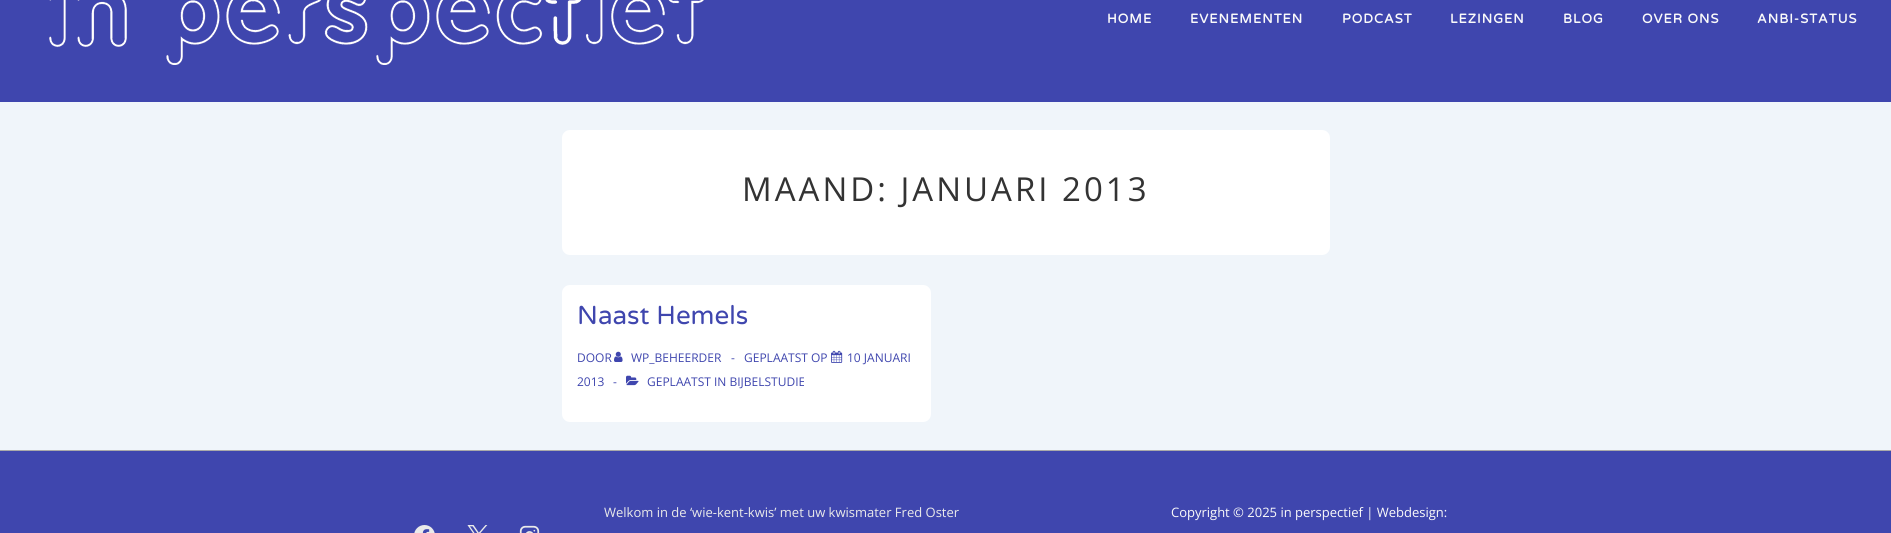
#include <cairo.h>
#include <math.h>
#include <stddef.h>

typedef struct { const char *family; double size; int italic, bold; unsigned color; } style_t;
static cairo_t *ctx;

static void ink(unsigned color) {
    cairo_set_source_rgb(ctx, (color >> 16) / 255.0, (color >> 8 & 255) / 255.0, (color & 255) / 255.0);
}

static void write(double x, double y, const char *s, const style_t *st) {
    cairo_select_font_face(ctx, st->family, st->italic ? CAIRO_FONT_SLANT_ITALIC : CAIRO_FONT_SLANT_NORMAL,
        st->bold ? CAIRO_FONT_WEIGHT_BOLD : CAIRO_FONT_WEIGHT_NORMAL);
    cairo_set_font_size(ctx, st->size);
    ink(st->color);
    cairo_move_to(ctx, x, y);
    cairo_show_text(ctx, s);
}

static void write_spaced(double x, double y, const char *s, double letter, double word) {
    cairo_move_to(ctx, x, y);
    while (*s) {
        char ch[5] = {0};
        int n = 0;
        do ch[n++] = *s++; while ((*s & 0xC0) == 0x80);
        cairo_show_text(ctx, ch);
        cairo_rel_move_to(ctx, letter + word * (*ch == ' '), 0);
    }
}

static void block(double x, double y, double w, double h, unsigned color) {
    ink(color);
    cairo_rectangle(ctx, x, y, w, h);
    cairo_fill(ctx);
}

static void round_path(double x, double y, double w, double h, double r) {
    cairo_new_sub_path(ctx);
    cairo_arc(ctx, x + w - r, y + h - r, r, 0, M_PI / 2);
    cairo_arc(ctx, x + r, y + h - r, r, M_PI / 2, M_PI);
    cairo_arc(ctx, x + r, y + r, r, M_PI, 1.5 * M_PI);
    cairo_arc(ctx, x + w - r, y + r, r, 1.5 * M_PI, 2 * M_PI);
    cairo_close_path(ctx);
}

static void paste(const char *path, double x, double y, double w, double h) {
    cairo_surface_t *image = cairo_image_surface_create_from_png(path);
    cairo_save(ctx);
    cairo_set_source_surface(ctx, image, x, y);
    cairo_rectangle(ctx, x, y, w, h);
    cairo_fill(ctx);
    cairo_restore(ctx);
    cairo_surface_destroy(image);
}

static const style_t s1 = {"Varela Round", 26, 0, 0, 0x3f46ae};
static const style_t s2 = {"Open Sans", 12, 0, 0, 0x3f46ae};
static const style_t s3 = {"Open Sans", 13, 0, 0, 0xeaeaea};
static const style_t s4 = {"Open Sans", 13, 0, 0, 0xfafafa};

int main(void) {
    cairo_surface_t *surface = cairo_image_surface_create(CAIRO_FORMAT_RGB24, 1891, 533);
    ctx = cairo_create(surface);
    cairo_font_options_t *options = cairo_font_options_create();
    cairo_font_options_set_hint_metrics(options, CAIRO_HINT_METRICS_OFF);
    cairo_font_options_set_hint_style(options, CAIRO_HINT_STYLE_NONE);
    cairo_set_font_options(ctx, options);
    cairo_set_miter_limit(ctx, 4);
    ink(0xf0f5fa);
    cairo_paint(ctx);
    block(0, 0, 1891, 102, 0x3f46ae);
    paste("pic1.png", 49, 0, 655, 65);
    cairo_select_font_face(ctx, "Varela Round", CAIRO_FONT_SLANT_NORMAL, CAIRO_FONT_WEIGHT_BOLD);
    cairo_set_font_size(ctx, 13);
    ink(0xfafafa);
    write_spaced(1107, 23, "HOME", 1, 0);
    write_spaced(1190, 23, "EVENEMENTEN", 1, 0);
    write_spaced(1342, 23, "PODCAST", 1, 0);
    write_spaced(1450, 23, "LEZINGEN", 1, 0);
    write_spaced(1563, 23, "BLOG", 1, 0);
    write_spaced(1642, 23, "OVER ONS", 1, 0);
    write_spaced(1757, 23, "ANBI-STATUS", 1, 0);
    ink(0xffffff);
    round_path(562, 130, 768, 125, 8);
    cairo_fill(ctx);
    cairo_select_font_face(ctx, "Open Sans", CAIRO_FONT_SLANT_NORMAL, CAIRO_FONT_WEIGHT_NORMAL);
    cairo_set_font_size(ctx, 33);
    ink(0x333333);
    write_spaced(742, 201, "MAAND: JANUARI 2013", 3, 0);
    ink(0xffffff);
    round_path(562, 285, 369, 137, 8);
    cairo_fill(ctx);
    write(577, 324, "Naast Hemels", &s1);
    write(577, 362, "DOOR", &s2);
    paste("pic2.png", 614, 351, 9, 11);
    write(631, 362, "WP_BEHEERDER", &s2);
    write(731, 362, "-", &s2);
    write(744, 362, "GEPLAATST OP", &s2);
    paste("pic3.png", 831, 350, 12, 13);
    write(847, 362, "10 JANUARI", &s2);
    write(577, 386, "2013", &s2);
    write(613, 386, "-", &s2);
    paste("pic4.png", 626, 375, 13, 11);
    write(647, 386, "GEPLAATST IN BIJBELSTUDIE", &s2);
    block(0, 451, 1891, 82, 0x3f46ae);
    block(0, 450, 1891, 1, 0xaaaaaa);
    write(604, 517, "Welkom in de ‘wie-kent-kwis’ met uw kwismater Fred Oster", &s3);
    paste("pic5.png", 414, 525, 21, 8);
    paste("pic6.png", 467, 525, 21, 8);
    paste("pic7.png", 519, 525, 21, 8);
    write(1171, 517, "Copyright © 2025 in perspectief | Webdesign:", &s4);
    cairo_surface_write_to_png(surface, "screenshot.png");
    cairo_font_options_destroy(options);
    cairo_destroy(ctx);
    cairo_surface_destroy(surface);
    return 0;
}
